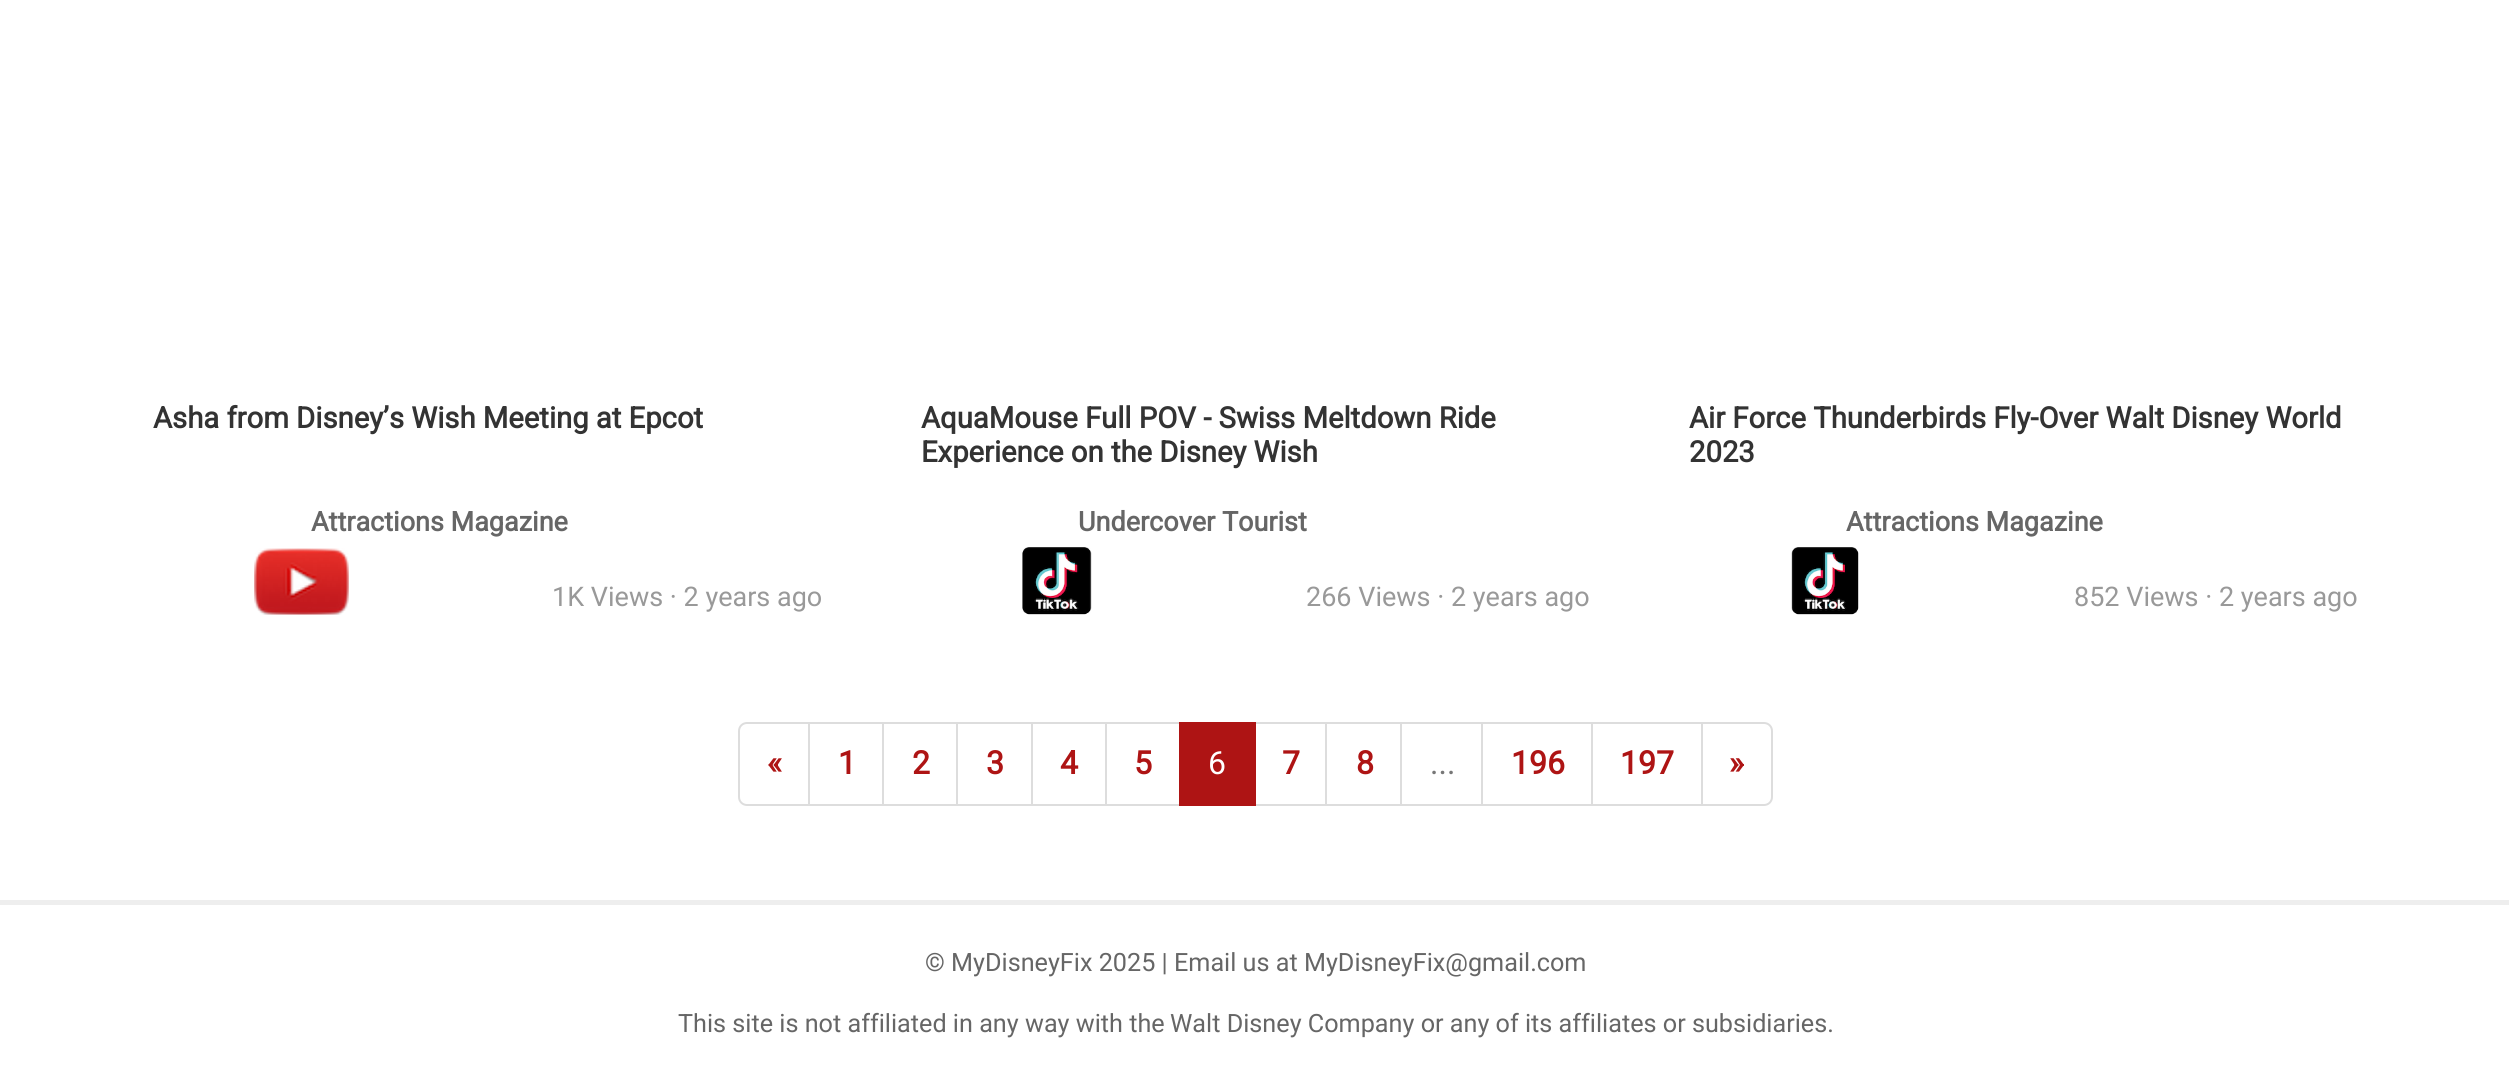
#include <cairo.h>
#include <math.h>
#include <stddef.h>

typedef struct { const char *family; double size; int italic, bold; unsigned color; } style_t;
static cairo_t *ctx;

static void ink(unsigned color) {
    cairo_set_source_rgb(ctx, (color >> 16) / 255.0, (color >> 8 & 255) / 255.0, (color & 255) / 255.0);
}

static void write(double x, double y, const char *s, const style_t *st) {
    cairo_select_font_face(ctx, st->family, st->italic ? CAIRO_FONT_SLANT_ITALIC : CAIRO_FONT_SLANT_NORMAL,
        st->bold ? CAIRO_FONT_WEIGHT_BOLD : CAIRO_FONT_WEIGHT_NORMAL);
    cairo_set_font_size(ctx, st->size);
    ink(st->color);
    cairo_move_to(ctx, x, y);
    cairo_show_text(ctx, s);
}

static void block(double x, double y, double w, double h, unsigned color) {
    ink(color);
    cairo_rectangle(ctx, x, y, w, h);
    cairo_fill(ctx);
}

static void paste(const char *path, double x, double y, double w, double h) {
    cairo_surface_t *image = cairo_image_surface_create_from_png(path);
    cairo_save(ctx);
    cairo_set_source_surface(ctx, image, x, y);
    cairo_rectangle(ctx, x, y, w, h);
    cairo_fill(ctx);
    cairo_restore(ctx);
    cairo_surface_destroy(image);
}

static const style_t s1 = {"Roboto", 29.25, 0, 1, 0x333333};
static const style_t s2 = {"Roboto", 27, 0, 1, 0x666666};
static const style_t s3 = {"Roboto", 27, 0, 0, 0x999999};
static const style_t s4 = {"Roboto", 32, 0, 1, 0xae1414};
static const style_t s5 = {"Roboto", 32, 0, 0, 0xffffff};
static const style_t s6 = {"Roboto", 32, 0, 0, 0x777777};
static const style_t s7 = {"Roboto", 25.2, 0, 0, 0x666666};

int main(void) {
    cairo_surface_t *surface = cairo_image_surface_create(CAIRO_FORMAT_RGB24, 2509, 1078);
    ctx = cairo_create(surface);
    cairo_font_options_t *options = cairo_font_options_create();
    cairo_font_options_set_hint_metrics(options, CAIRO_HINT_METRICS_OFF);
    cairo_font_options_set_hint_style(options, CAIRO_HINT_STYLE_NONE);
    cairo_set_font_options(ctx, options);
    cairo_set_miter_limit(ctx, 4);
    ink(0xffffff);
    cairo_paint(ctx);
    write(153, 428, "Asha from Disney’s Wish Meeting at Epcot", &s1);
    write(311, 531, "Attractions Magazine", &s2);
    paste("pic1.png", 254, 548, 95, 67);
    write(552, 606, "1K Views · 2 years ago", &s3);
    write(921, 428, "AquaMouse Full POV - Swiss Meltdown Ride", &s1);
    write(921, 462, "Experience on the Disney Wish", &s1);
    write(1078, 531, "Undercover Tourist", &s2);
    paste("pic2.png", 1022, 547, 70, 68);
    write(1306, 606, "266 Views · 2 years ago", &s3);
    write(1689, 428, "Air Force Thunderbirds Fly-Over Walt Disney World", &s1);
    write(1689, 462, "2023", &s1);
    write(1846, 531, "Attractions Magazine", &s2);
    paste("pic3.png", 1791, 547, 68, 68);
    write(2074, 606, "852 Views · 2 years ago", &s3);
    cairo_new_path(ctx);
    cairo_move_to(ctx, 747, 723);
    cairo_line_to(ctx, 809, 723);
    cairo_line_to(ctx, 809, 805);
    cairo_line_to(ctx, 747, 805);
    cairo_curve_to(ctx, 742.5, 805, 739, 801.5, 739, 797);
    cairo_line_to(ctx, 739, 731);
    cairo_curve_to(ctx, 739, 726.5, 742.5, 723, 747, 723);
    cairo_close_path(ctx);
    ink(0xdddddd);
    cairo_stroke(ctx);
    write(767, 774, "«", &s4);
    cairo_rectangle(ctx, 809, 723, 74, 82);
    ink(0xdddddd);
    cairo_stroke(ctx);
    write(838, 774, "1", &s4);
    cairo_rectangle(ctx, 883, 723, 75, 82);
    ink(0xdddddd);
    cairo_stroke(ctx);
    write(912, 774, "2", &s4);
    block(958, 724, 1, 80, 0xffffff);
    cairo_rectangle(ctx, 957, 723, 75, 82);
    ink(0xdddddd);
    cairo_stroke(ctx);
    write(986, 774, "3", &s4);
    cairo_rectangle(ctx, 1032, 723, 74, 82);
    ink(0xdddddd);
    cairo_stroke(ctx);
    write(1060, 774, "4", &s4);
    cairo_rectangle(ctx, 1106, 723, 74, 82);
    ink(0xdddddd);
    cairo_stroke(ctx);
    write(1134, 774, "5", &s4);
    cairo_rectangle(ctx, 1254, 723, 73, 82);
    ink(0xdddddd);
    cairo_stroke(ctx);
    block(1179, 722, 77, 84, 0xae1414);
    write(1208, 774, "6", &s5);
    write(1282, 774, "7", &s4);
    block(1327, 724, 1, 80, 0xffffff);
    cairo_rectangle(ctx, 1326, 723, 75, 82);
    ink(0xdddddd);
    cairo_stroke(ctx);
    write(1356, 774, "8", &s4);
    cairo_rectangle(ctx, 1401, 723, 81, 82);
    ink(0xdddddd);
    cairo_stroke(ctx);
    cairo_rectangle(ctx, 1482, 723, 110, 82);
    cairo_stroke(ctx);
    write(1511, 774, "196", &s4);
    cairo_rectangle(ctx, 1592, 723, 110, 82);
    ink(0xdddddd);
    cairo_stroke(ctx);
    write(1620, 774, "197", &s4);
    ink(0xffffff);
    cairo_new_path(ctx);
    cairo_move_to(ctx, 1702, 723);
    cairo_line_to(ctx, 1764, 723);
    cairo_curve_to(ctx, 1768.5, 723, 1772, 726.5, 1772, 731);
    cairo_line_to(ctx, 1772, 797);
    cairo_curve_to(ctx, 1772, 801.5, 1768.5, 805, 1764, 805);
    cairo_line_to(ctx, 1702, 805);
    cairo_close_path(ctx);
    cairo_fill_preserve(ctx);
    ink(0xdddddd);
    cairo_stroke(ctx);
    write(1729, 774, "»", &s4);
    write(1430, 774, "...", &s6);
    block(0, 900, 2509, 5, 0xeeeeee);
    write(925, 971, "© MyDisneyFix 2025 | Email us at MyDisneyFix@gmail.com", &s7);
    write(678, 1032, "This site is not affiliated in any way with the", &s7);
    write(1170, 1032, "Walt Disney Company or any of its affiliates or subsidiaries.", &s7);
    cairo_surface_write_to_png(surface, "screenshot.png");
    cairo_font_options_destroy(options);
    cairo_destroy(ctx);
    cairo_surface_destroy(surface);
    return 0;
}
